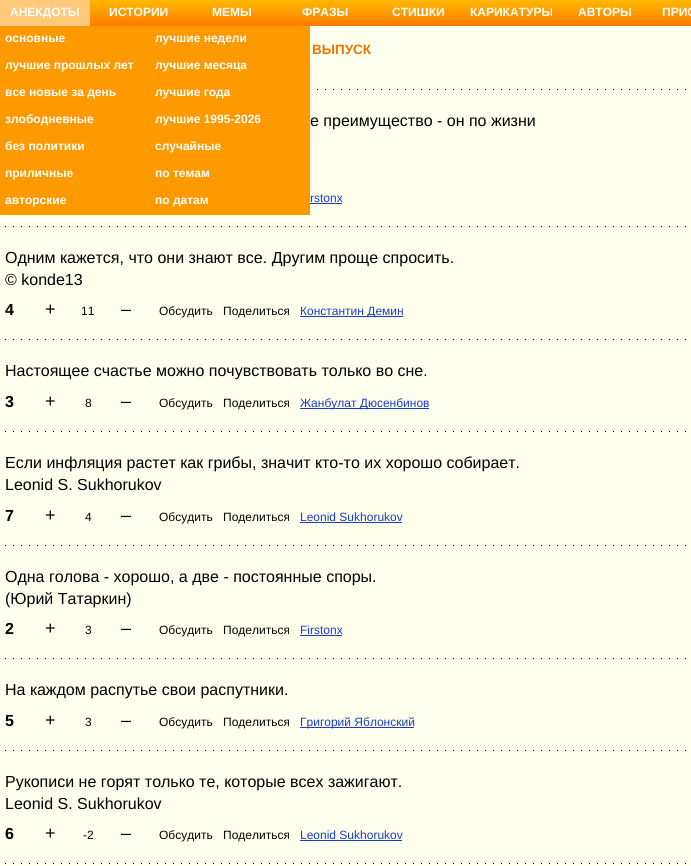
#include <cairo.h>
#include <math.h>
#include <stddef.h>

typedef struct { const char *family; double size; int italic, bold; unsigned color; } style_t;
static cairo_t *ctx;

static void ink(unsigned color) {
    cairo_set_source_rgb(ctx, (color >> 16) / 255.0, (color >> 8 & 255) / 255.0, (color & 255) / 255.0);
}

static void write(double x, double y, const char *s, const style_t *st) {
    cairo_select_font_face(ctx, st->family, st->italic ? CAIRO_FONT_SLANT_ITALIC : CAIRO_FONT_SLANT_NORMAL,
        st->bold ? CAIRO_FONT_WEIGHT_BOLD : CAIRO_FONT_WEIGHT_NORMAL);
    cairo_set_font_size(ctx, st->size);
    ink(st->color);
    cairo_move_to(ctx, x, y);
    cairo_show_text(ctx, s);
}

static void block(double x, double y, double w, double h, unsigned color) {
    ink(color);
    cairo_rectangle(ctx, x, y, w, h);
    cairo_fill(ctx);
}

static void paste(const char *path, double x, double y, double w, double h) {
    cairo_surface_t *image = cairo_image_surface_create_from_png(path);
    cairo_save(ctx);
    cairo_set_source_surface(ctx, image, x, y);
    cairo_rectangle(ctx, x, y, w, h);
    cairo_fill(ctx);
    cairo_restore(ctx);
    cairo_surface_destroy(image);
}

static const style_t s1 = {"Liberation Sans", 12, 0, 1, 0xffffff};
static const style_t s2 = {"Liberation Sans", 13.5, 0, 1, 0xeb7400};
static const style_t s3 = {"Liberation Sans", 16, 0, 0, 0x000000};
static const style_t s4 = {"Liberation Sans", 12, 0, 0, 0x1a3dc1};
static const style_t s5 = {"Liberation Sans", 16, 0, 1, 0x000000};
static const style_t s6 = {"Liberation Sans", 18, 0, 0, 0x000000};
static const style_t s7 = {"Liberation Sans", 12, 0, 0, 0x000000};

int main(void) {
    cairo_surface_t *surface = cairo_image_surface_create(CAIRO_FORMAT_RGB24, 691, 866);
    ctx = cairo_create(surface);
    cairo_font_options_t *options = cairo_font_options_create();
    cairo_font_options_set_hint_metrics(options, CAIRO_HINT_METRICS_OFF);
    cairo_font_options_set_hint_style(options, CAIRO_HINT_STYLE_NONE);
    cairo_set_font_options(ctx, options);
    cairo_set_miter_limit(ctx, 4);
    cairo_pattern_t *gradient;
    ink(0xffffee);
    cairo_paint(ctx);
    gradient = cairo_pattern_create_linear(346, 0, 346, 26);
    cairo_pattern_add_color_stop_rgba(gradient, 0, 1, 0.722, 0, 1);
    cairo_pattern_add_color_stop_rgba(gradient, 1, 1, 0.478, 0, 1);
    cairo_set_source(ctx, gradient);
    cairo_pattern_destroy(gradient);
    cairo_rectangle(ctx, 90, 0, 601, 26);
    cairo_fill(ctx);
    block(0, 0, 90, 26, 0xffc97c);
    write(10, 16, "АНЕКДОТЫ", &s1);
    block(0, 26, 150, 189, 0xff9900);
    write(5, 42, "основные", &s1);
    write(5, 69, "лучшие прошлых лет", &s1);
    write(5, 96, "все новые за день", &s1);
    write(5, 123, "злободневные", &s1);
    write(5, 150, "без политики", &s1);
    write(5, 177, "приличные", &s1);
    write(5, 204, "авторские", &s1);
    block(150, 26, 160, 189, 0xff9900);
    write(155, 42, "лучшие недели", &s1);
    write(155, 69, "лучшие месяца", &s1);
    write(155, 96, "лучшие года", &s1);
    write(155, 123, "лучшие 1995-2026", &s1);
    write(155, 150, "случайные", &s1);
    write(155, 177, "по темам", &s1);
    write(155, 204, "по датам", &s1);
    write(109, 16, "ИСТОРИИ", &s1);
    write(212, 16, "МЕМЫ", &s1);
    write(302, 16, "ФРАЗЫ", &s1);
    write(392, 16, "СТИШКИ", &s1);
    write(470, 16, "КАРИКАТУРЫ", &s1);
    write(578, 16, "АВТОРЫ", &s1);
    write(662, 16, "ПРИС", &s1);
    paste("pic1.png", 317, 89, 369, 1);
    write(312, 54, "ВЫПУСК", &s2);
    paste("pic2.png", 5, 226, 681, 1);
    write(310, 126, "е преимущество - он по жизни", &s3);
    write(310, 202, "rstonx", &s4);
    block(310, 203, 32, 1, 0x1a3dc1);
    paste("pic2.png", 5, 339, 681, 1);
    write(5, 263, "Одним кажется, что они знают все. Другим проще спросить.", &s3);
    write(5, 285, "© konde13", &s3);
    write(5, 315, "4", &s5);
    write(45, 315, "+", &s6);
    write(81, 315, "11", &s7);
    write(121, 315, "–", &s6);
    write(159, 315, "Обсудить", &s7);
    write(223, 315, "Поделиться", &s7);
    block(300, 316, 103, 1, 0x1a3dc1);
    write(300, 315, "Константин Демин", &s4);
    paste("pic2.png", 5, 431, 681, 1);
    write(5, 376, "Настоящее счастье можно почувствовать только во сне.", &s3);
    write(5, 407, "3", &s5);
    write(45, 407, "+", &s6);
    write(85, 407, "8", &s7);
    write(121, 407, "–", &s6);
    write(159, 407, "Обсудить", &s7);
    write(223, 407, "Поделиться", &s7);
    block(300, 408, 129, 1, 0x1a3dc1);
    write(300, 407, "Жанбулат Дюсенбинов", &s4);
    paste("pic2.png", 5, 545, 681, 1);
    write(5, 468, "Если инфляция растет как грибы, значит кто-то их хорошо собирает.", &s3);
    write(5, 490, "Leonid S. Sukhorukov", &s3);
    write(5, 521, "7", &s5);
    write(45, 521, "+", &s6);
    write(85, 521, "4", &s7);
    write(121, 521, "–", &s6);
    write(159, 521, "Обсудить", &s7);
    write(223, 521, "Поделиться", &s7);
    write(300, 521, "Leonid Sukhorukov", &s4);
    block(300, 522, 102, 1, 0x1a3dc1);
    paste("pic2.png", 5, 658, 681, 1);
    write(5, 582, "Одна голова - хорошо, а две - постоянные споры.", &s3);
    write(5, 604, "(Юрий Татаркин)", &s3);
    write(5, 634, "2", &s5);
    write(45, 634, "+", &s6);
    write(85, 634, "3", &s7);
    write(121, 634, "–", &s6);
    write(159, 634, "Обсудить", &s7);
    write(223, 634, "Поделиться", &s7);
    write(300, 634, "Firstonx", &s4);
    block(300, 635, 42, 1, 0x1a3dc1);
    paste("pic2.png", 5, 750, 681, 1);
    write(5, 695, "На каждом распутье свои распутники.", &s3);
    write(5, 726, "5", &s5);
    write(45, 726, "+", &s6);
    write(85, 726, "3", &s7);
    write(121, 726, "–", &s6);
    write(159, 726, "Обсудить", &s7);
    write(223, 726, "Поделиться", &s7);
    block(300, 727, 114, 1, 0x1a3dc1);
    write(300, 726, "Григорий Яблонский", &s4);
    paste("pic2.png", 5, 863, 681, 1);
    write(5, 787, "Рукописи не горят только те, которые всех зажигают.", &s3);
    write(5, 809, "Leonid S. Sukhorukov", &s3);
    write(5, 839, "6", &s5);
    write(45, 839, "+", &s6);
    write(83, 839, "-2", &s7);
    write(121, 839, "–", &s6);
    write(159, 839, "Обсудить", &s7);
    write(223, 839, "Поделиться", &s7);
    write(300, 839, "Leonid Sukhorukov", &s4);
    block(300, 840, 102, 1, 0x1a3dc1);
    cairo_surface_write_to_png(surface, "screenshot.png");
    cairo_font_options_destroy(options);
    cairo_destroy(ctx);
    cairo_surface_destroy(surface);
    return 0;
}
